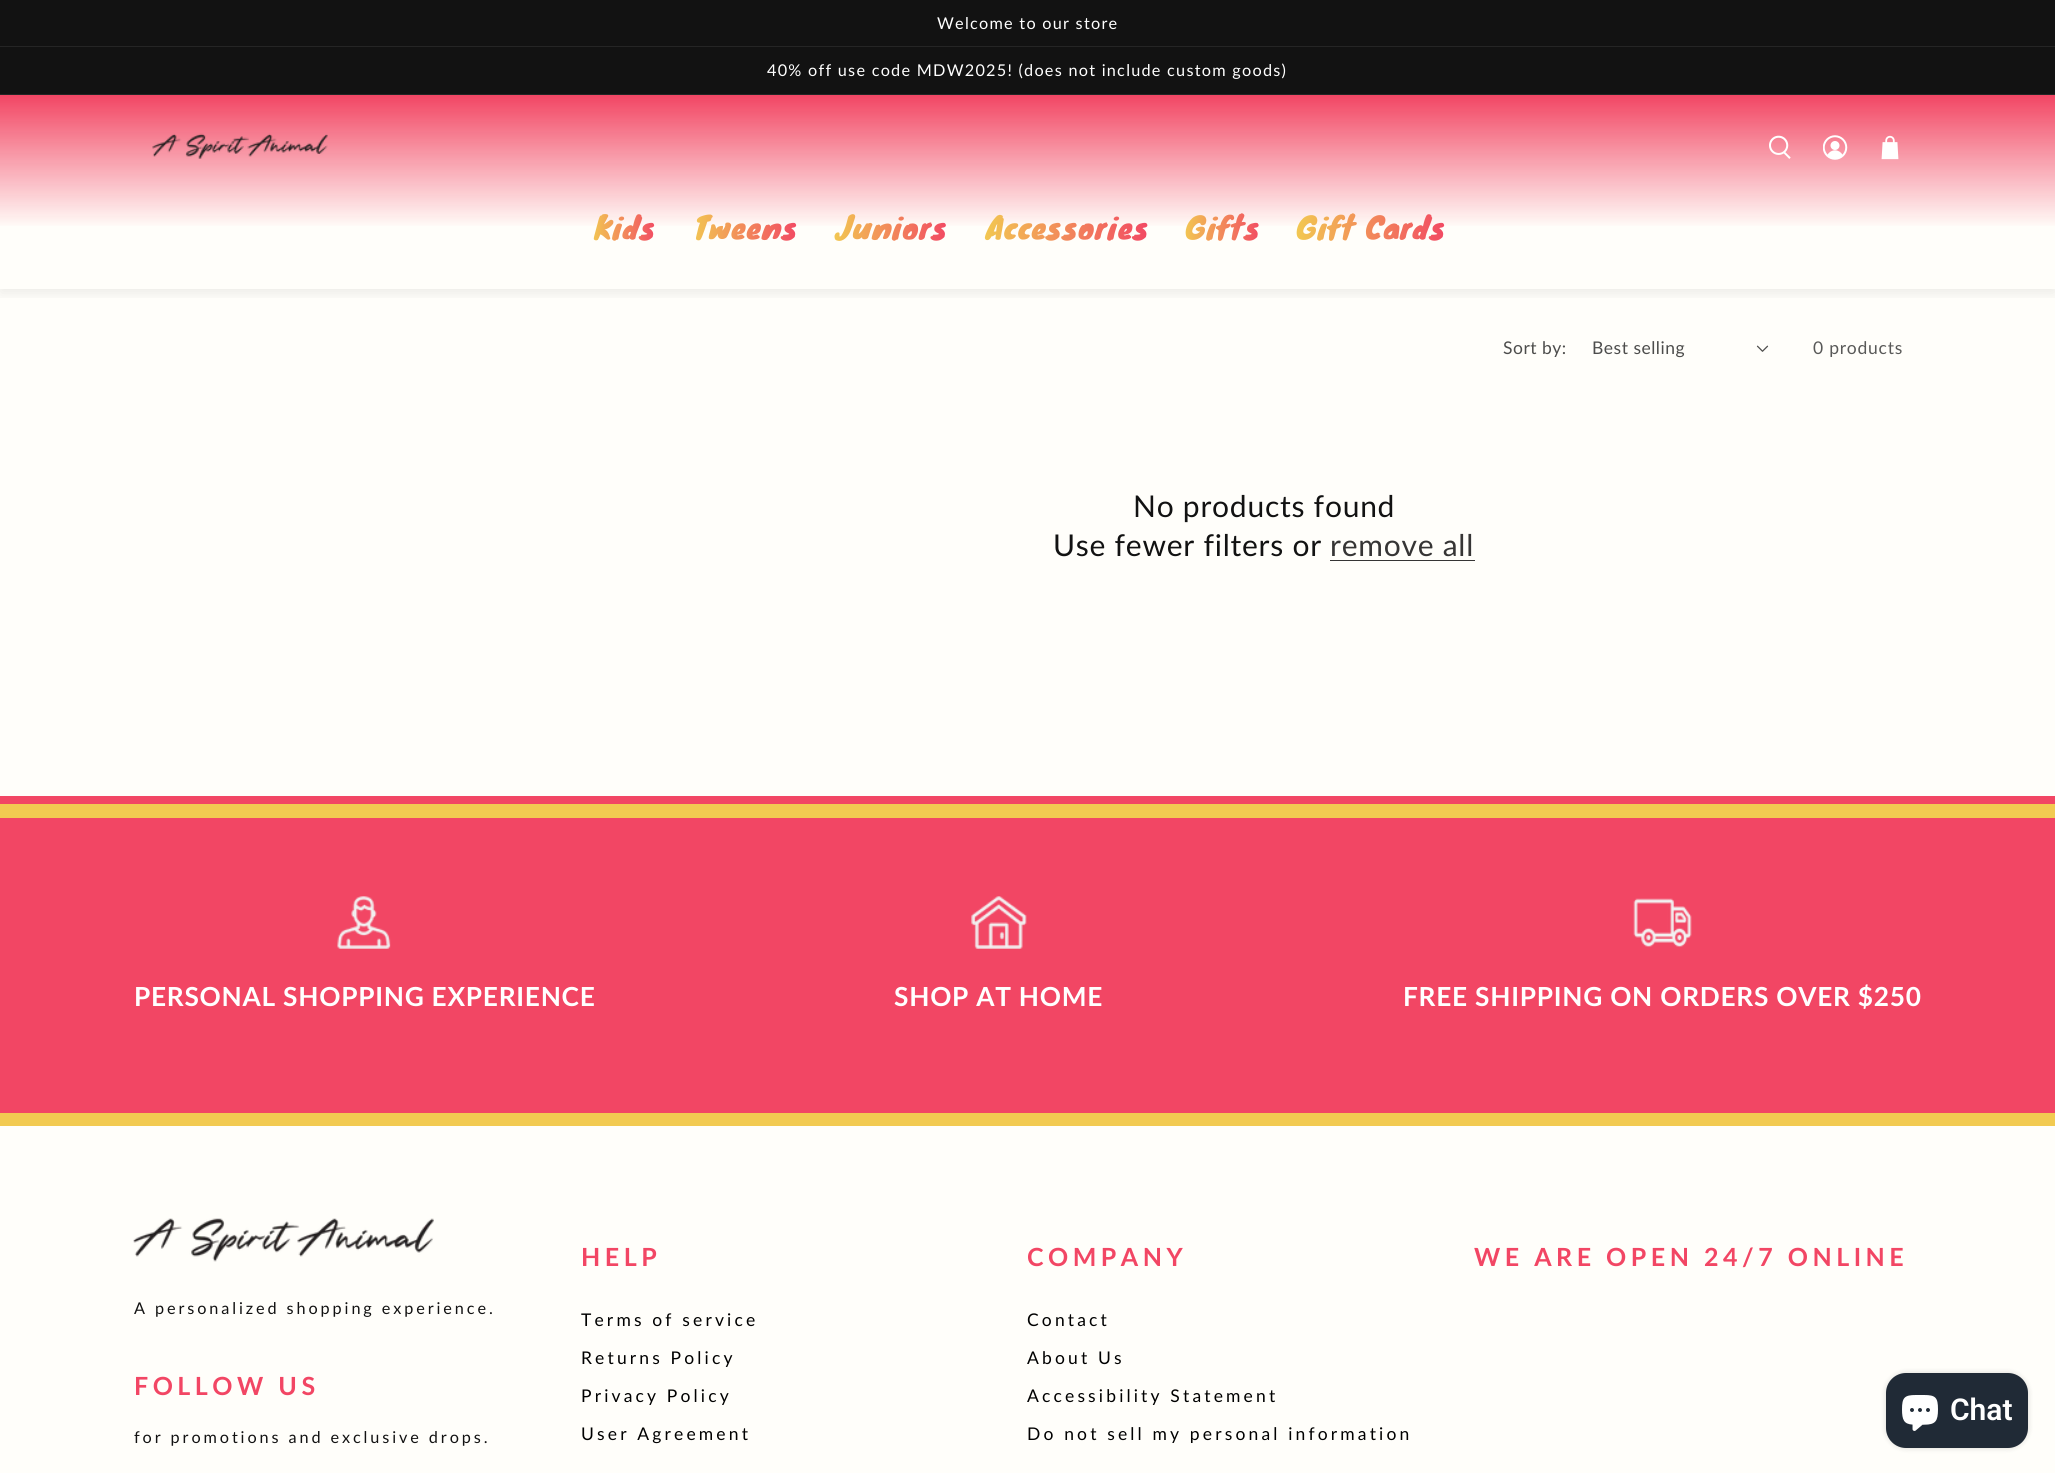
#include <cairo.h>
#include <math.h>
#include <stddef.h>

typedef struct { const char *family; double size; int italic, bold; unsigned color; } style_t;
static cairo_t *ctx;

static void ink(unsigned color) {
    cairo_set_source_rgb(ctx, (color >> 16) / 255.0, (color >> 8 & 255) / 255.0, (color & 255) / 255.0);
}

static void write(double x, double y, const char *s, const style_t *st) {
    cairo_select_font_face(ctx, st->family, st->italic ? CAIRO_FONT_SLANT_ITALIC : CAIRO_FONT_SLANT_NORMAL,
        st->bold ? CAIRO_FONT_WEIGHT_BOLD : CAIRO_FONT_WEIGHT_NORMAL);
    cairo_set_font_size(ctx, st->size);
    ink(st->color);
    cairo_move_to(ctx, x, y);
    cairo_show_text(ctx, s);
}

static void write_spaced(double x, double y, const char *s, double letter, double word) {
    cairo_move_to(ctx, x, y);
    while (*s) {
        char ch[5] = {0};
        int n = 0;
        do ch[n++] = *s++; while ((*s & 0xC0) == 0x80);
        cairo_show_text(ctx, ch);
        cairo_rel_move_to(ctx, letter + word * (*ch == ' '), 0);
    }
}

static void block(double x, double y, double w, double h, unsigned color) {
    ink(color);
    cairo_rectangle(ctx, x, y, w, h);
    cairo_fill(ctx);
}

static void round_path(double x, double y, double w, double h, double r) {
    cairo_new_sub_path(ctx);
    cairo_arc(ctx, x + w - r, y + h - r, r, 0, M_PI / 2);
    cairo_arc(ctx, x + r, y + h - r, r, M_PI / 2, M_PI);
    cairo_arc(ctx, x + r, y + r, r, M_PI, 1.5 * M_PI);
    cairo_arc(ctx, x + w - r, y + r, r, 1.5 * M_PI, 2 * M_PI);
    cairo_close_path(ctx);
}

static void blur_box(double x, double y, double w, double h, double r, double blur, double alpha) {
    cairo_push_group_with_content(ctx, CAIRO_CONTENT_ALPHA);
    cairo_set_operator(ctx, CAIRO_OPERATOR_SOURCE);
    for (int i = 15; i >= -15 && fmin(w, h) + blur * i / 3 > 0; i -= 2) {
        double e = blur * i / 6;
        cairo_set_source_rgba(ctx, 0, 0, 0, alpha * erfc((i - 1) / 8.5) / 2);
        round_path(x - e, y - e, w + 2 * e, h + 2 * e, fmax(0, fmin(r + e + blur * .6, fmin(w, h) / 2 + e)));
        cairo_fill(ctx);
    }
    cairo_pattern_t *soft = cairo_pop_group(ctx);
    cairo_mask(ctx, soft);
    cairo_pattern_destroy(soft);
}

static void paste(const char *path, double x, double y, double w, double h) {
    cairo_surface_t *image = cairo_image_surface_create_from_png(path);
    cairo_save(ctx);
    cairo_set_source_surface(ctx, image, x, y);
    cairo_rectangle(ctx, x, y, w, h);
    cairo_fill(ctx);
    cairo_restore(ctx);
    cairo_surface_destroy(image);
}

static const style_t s1 = {"Roboto SemiBold", 30, 0, 0, 0xffffff};

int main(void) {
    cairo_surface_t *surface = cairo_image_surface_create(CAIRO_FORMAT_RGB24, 2055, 1473);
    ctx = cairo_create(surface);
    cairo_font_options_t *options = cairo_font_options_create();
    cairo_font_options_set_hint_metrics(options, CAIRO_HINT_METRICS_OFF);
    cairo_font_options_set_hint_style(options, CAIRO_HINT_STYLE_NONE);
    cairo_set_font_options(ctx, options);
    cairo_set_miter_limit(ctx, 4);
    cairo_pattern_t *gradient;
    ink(0xfffefa);
    cairo_paint(ctx);
    cairo_save(ctx);
    cairo_rectangle(ctx, 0, 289, 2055, 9);
    cairo_clip(ctx);
    ink(0x000000);
    blur_box(0, 99, 2055, 194, 0, 7, 0.08);
    cairo_restore(ctx);
    block(0, 0, 2055, 94, 0x121212);
    block(0, 46, 2055, 1, 0x252525);
    cairo_select_font_face(ctx, "Lato", CAIRO_FONT_SLANT_NORMAL, CAIRO_FONT_WEIGHT_NORMAL);
    cairo_set_font_size(ctx, 16.25);
    ink(0xffffff);
    write_spaced(937, 29, "Welcome to our store", 1.25, 0);
    block(0, 94, 2055, 1, 0x252525);
    ink(0xffffff);
    write_spaced(767, 76, "40% off use code MDW2025! (does not include custom goods)", 1.25, 0);
    gradient = cairo_pattern_create_linear(1028, 95, 1028, 289);
    cairo_pattern_add_color_stop_rgba(gradient, 0, 0.949, 0.275, 0.392, 1);
    cairo_pattern_add_color_stop_rgba(gradient, 0.69, 0.949, 0.275, 0.392, 0);
    cairo_set_source(ctx, gradient);
    cairo_pattern_destroy(gradient);
    cairo_rectangle(ctx, 0, 95, 2055, 131);
    cairo_fill(ctx);
    paste("pic1.png", 152, 133, 176, 26);
    paste("pic2.png", 1769, 135, 22, 24);
    paste("pic3.png", 1823, 135, 25, 25);
    paste("pic4.png", 1881, 135, 18, 25);
    cairo_select_font_face(ctx, "Knewave", CAIRO_FONT_SLANT_NORMAL, CAIRO_FONT_WEIGHT_NORMAL);
    cairo_set_font_size(ctx, 30);
    gradient = cairo_pattern_create_linear(590, 226, 659, 226);
    cairo_pattern_add_color_stop_rgba(gradient, 0, 0.949, 0.792, 0.318, 1);
    cairo_pattern_add_color_stop_rgba(gradient, 1, 0.949, 0.275, 0.392, 1);
    cairo_set_source(ctx, gradient);
    cairo_pattern_destroy(gradient);
    write_spaced(594, 238, "Kids", 0.75, 0);
    gradient = cairo_pattern_create_linear(689, 226, 801, 226);
    cairo_pattern_add_color_stop_rgba(gradient, 0, 0.949, 0.792, 0.318, 1);
    cairo_pattern_add_color_stop_rgba(gradient, 1, 0.949, 0.275, 0.392, 1);
    cairo_set_source(ctx, gradient);
    cairo_pattern_destroy(gradient);
    write_spaced(693, 238, "Tweens", 0.75, 0);
    gradient = cairo_pattern_create_linear(831, 226, 951, 226);
    cairo_pattern_add_color_stop_rgba(gradient, 0, 0.949, 0.792, 0.318, 1);
    cairo_pattern_add_color_stop_rgba(gradient, 1, 0.949, 0.275, 0.392, 1);
    cairo_set_source(ctx, gradient);
    cairo_pattern_destroy(gradient);
    write_spaced(835, 238, "Juniors", 0.75, 0);
    gradient = cairo_pattern_create_linear(981, 226, 1152, 226);
    cairo_pattern_add_color_stop_rgba(gradient, 0, 0.949, 0.792, 0.318, 1);
    cairo_pattern_add_color_stop_rgba(gradient, 1, 0.949, 0.275, 0.392, 1);
    cairo_set_source(ctx, gradient);
    cairo_pattern_destroy(gradient);
    write_spaced(985, 238, "Accessories", 0.75, 0);
    gradient = cairo_pattern_create_linear(1182, 226, 1264, 226);
    cairo_pattern_add_color_stop_rgba(gradient, 0, 0.949, 0.792, 0.318, 1);
    cairo_pattern_add_color_stop_rgba(gradient, 1, 0.949, 0.275, 0.392, 1);
    cairo_set_source(ctx, gradient);
    cairo_pattern_destroy(gradient);
    write_spaced(1186, 238, "Gifts", 0.75, 0);
    gradient = cairo_pattern_create_linear(1294, 226, 1450, 226);
    cairo_pattern_add_color_stop_rgba(gradient, 0, 0.949, 0.792, 0.318, 1);
    cairo_pattern_add_color_stop_rgba(gradient, 1, 0.949, 0.275, 0.392, 1);
    cairo_set_source(ctx, gradient);
    cairo_pattern_destroy(gradient);
    write_spaced(1297, 238, "Gift Cards", 0.75, 0);
    cairo_select_font_face(ctx, "Lato", CAIRO_FONT_SLANT_NORMAL, CAIRO_FONT_WEIGHT_NORMAL);
    cairo_set_font_size(ctx, 17.5);
    ink(0x4d4d4c);
    write_spaced(1503, 354, "Sort by:", 0.5, 0);
    write_spaced(1592, 354, "Best selling", 0.5, 0);
    paste("pic5.png", 1756, 345, 13, 7);
    ink(0x595958);
    write_spaced(1813, 354, "0 products", 0.75, 0);
    cairo_set_font_size(ctx, 30);
    ink(0x121212);
    write_spaced(1133, 517, "No products found", 0.75, 0);
    write_spaced(1053, 556, "Use fewer filters or", 0.75, 0);
    ink(0x363535);
    write_spaced(1330, 556, "remove all", 0.75, 0);
    block(1330, 560, 145, 1, 0x363535);
    block(0, 796, 2055, 8, 0xf24664);
    block(0, 818, 2055, 295, 0xf24664);
    block(0, 804, 2055, 14, 0xf2ca51);
    block(0, 1113, 2055, 13, 0xf2ca51);
    paste("pic6.png", 337, 896, 54, 53);
    cairo_select_font_face(ctx, "Lato", CAIRO_FONT_SLANT_NORMAL, CAIRO_FONT_WEIGHT_BOLD);
    cairo_set_font_size(ctx, 26.25);
    ink(0xffffff);
    write_spaced(134, 1006, "PERSONAL SHOPPING EXPERIENCE", 0.75, 0);
    paste("pic7.png", 971, 896, 56, 53);
    write_spaced(894, 1006, "SHOP AT HOME", 0.75, 0);
    paste("pic8.png", 1633, 898, 59, 50);
    write_spaced(1403, 1006, "FREE SHIPPING ON ORDERS OVER $250", 0.75, 0);
    cairo_set_font_size(ctx, 25);
    ink(0xf24664);
    write_spaced(581, 1266, "HELP", 4.5, 0);
    cairo_select_font_face(ctx, "Lato", CAIRO_FONT_SLANT_NORMAL, CAIRO_FONT_WEIGHT_NORMAL);
    cairo_set_font_size(ctx, 17.5);
    ink(0x000000);
    write_spaced(581, 1326, "Terms of service", 3.15, 0);
    write_spaced(581, 1364, "Returns Policy", 3.15, 0);
    write_spaced(581, 1402, "Privacy Policy", 3.15, 0);
    write_spaced(581, 1440, "User Agreement", 3.15, 0);
    cairo_select_font_face(ctx, "Lato", CAIRO_FONT_SLANT_NORMAL, CAIRO_FONT_WEIGHT_BOLD);
    cairo_set_font_size(ctx, 25);
    ink(0xf24664);
    write_spaced(1027, 1266, "COMPANY", 4.5, 0);
    cairo_select_font_face(ctx, "Lato", CAIRO_FONT_SLANT_NORMAL, CAIRO_FONT_WEIGHT_NORMAL);
    cairo_set_font_size(ctx, 17.5);
    ink(0x000000);
    write_spaced(1027, 1326, "Contact", 3.15, 0);
    write_spaced(1027, 1364, "About Us", 3.15, 0);
    write_spaced(1027, 1402, "Accessibility Statement", 3.15, 0);
    write_spaced(1027, 1440, "Do not sell my personal information", 3.15, 0);
    cairo_select_font_face(ctx, "Lato", CAIRO_FONT_SLANT_NORMAL, CAIRO_FONT_WEIGHT_BOLD);
    cairo_set_font_size(ctx, 25);
    ink(0xf24664);
    write_spaced(1474, 1266, "WE ARE OPEN 24/7 ONLINE", 4.5, 0);
    paste("pic9.png", 133, 1218, 301, 44);
    cairo_select_font_face(ctx, "Lato", CAIRO_FONT_SLANT_NORMAL, CAIRO_FONT_WEIGHT_NORMAL);
    cairo_set_font_size(ctx, 16.25);
    ink(0x121212);
    write_spaced(134, 1314, "A personalized shopping experience.", 2.9, 0);
    cairo_select_font_face(ctx, "Lato", CAIRO_FONT_SLANT_NORMAL, CAIRO_FONT_WEIGHT_BOLD);
    cairo_set_font_size(ctx, 25);
    ink(0xf24664);
    write_spaced(134, 1395, "FOLLOW US", 4.5, 0);
    cairo_select_font_face(ctx, "Lato", CAIRO_FONT_SLANT_NORMAL, CAIRO_FONT_WEIGHT_NORMAL);
    cairo_set_font_size(ctx, 16.25);
    ink(0x121212);
    write_spaced(134, 1443, "for promotions and exclusive drops.", 2.9, 0);
    ink(0x000000);
    blur_box(1886, 1373, 142, 75, 20, 3, 0.15);
    ink(0x202a36);
    round_path(1886, 1373, 142, 75, 20);
    cairo_fill(ctx);
    paste("pic10.png", 1902, 1395, 36, 36);
    write(1950, 1420, "Chat", &s1);
    cairo_surface_write_to_png(surface, "screenshot.png");
    cairo_font_options_destroy(options);
    cairo_destroy(ctx);
    cairo_surface_destroy(surface);
    return 0;
}
